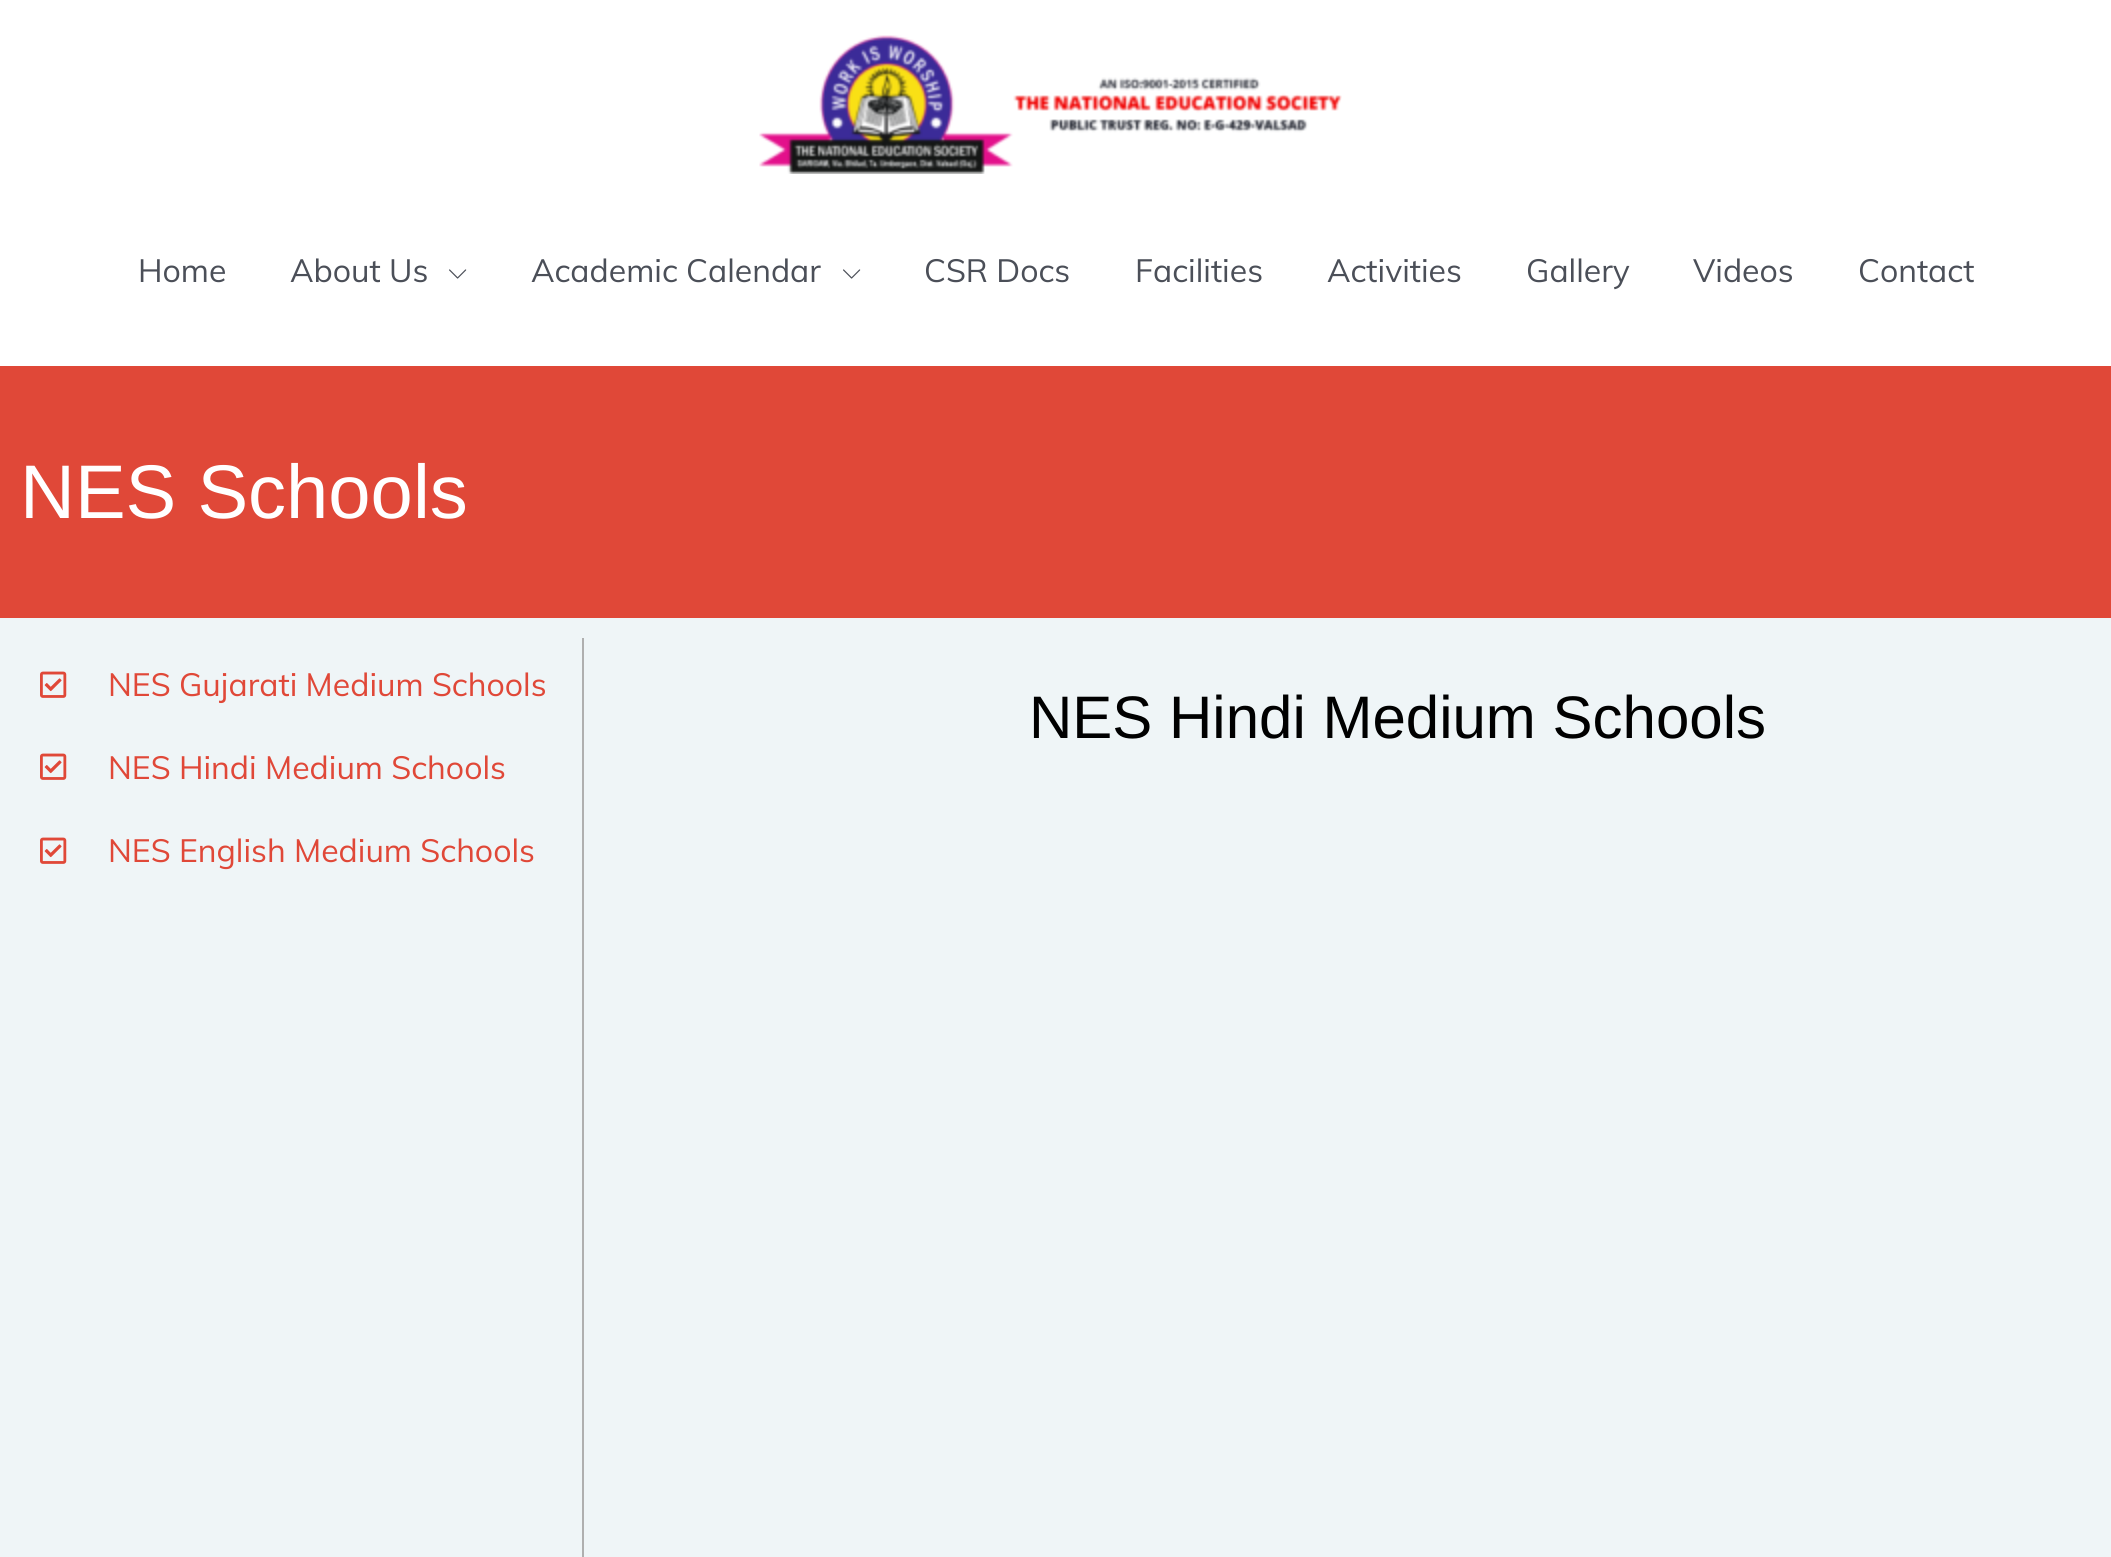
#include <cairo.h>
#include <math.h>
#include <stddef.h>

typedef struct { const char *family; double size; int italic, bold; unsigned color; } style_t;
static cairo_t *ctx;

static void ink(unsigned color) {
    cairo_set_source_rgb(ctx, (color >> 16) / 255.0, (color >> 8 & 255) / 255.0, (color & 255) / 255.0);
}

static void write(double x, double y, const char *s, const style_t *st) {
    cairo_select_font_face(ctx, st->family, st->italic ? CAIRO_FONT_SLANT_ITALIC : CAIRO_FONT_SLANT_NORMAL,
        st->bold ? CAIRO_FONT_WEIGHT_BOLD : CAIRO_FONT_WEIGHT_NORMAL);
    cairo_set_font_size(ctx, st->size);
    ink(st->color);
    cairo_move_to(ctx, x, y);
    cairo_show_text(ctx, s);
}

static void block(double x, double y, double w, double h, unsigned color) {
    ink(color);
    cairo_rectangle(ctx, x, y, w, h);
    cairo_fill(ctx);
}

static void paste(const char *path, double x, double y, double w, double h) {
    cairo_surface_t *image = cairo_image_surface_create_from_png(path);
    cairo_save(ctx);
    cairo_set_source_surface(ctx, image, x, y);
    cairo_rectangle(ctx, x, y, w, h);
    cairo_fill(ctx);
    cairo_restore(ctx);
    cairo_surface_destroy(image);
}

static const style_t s1 = {"Muli", 32, 0, 0, 0x4b4f58};
static const style_t s2 = {"Liberation Sans", 76, 0, 0, 0xffffff};
static const style_t s3 = {"Muli", 32, 0, 0, 0xe04838};
static const style_t s4 = {"Liberation Sans", 60, 0, 0, 0x000000};

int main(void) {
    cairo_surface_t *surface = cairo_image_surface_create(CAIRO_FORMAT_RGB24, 2111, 1557);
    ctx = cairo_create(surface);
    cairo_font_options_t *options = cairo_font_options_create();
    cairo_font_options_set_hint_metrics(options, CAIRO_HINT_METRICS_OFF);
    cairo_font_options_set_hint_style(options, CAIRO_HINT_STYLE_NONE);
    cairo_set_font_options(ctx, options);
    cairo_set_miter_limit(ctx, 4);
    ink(0xeff5f7);
    cairo_paint(ctx);
    block(0, 0, 2111, 366, 0xffffff);
    paste("pic1.png", 759, 35, 583, 139);
    write(138, 282, "Home", &s1);
    write(290, 282, "About Us", &s1);
    paste("pic2.png", 449, 269, 18, 10);
    write(531, 282, "Academic Calendar", &s1);
    paste("pic2.png", 843, 269, 18, 10);
    write(924, 282, "CSR Docs", &s1);
    write(1135, 282, "Facilities", &s1);
    write(1327, 282, "Activities", &s1);
    write(1526, 282, "Gallery", &s1);
    write(1693, 282, "Videos", &s1);
    write(1858, 282, "Contact", &s1);
    block(0, 366, 2111, 252, 0xe04838);
    write(20, 518, "NES Schools", &s2);
    paste("pic3.png", 40, 671, 27, 27);
    write(108, 696, "NES Gujarati Medium Schools", &s3);
    paste("pic3.png", 40, 753, 27, 27);
    write(108, 779, "NES Hindi Medium Schools", &s3);
    paste("pic3.png", 40, 837, 27, 27);
    write(108, 862, "NES English Medium Schools", &s3);
    block(582, 638, 2, 919, 0xafafaf);
    write(1029, 738, "NES Hindi Medium Schools", &s4);
    cairo_surface_write_to_png(surface, "screenshot.png");
    cairo_font_options_destroy(options);
    cairo_destroy(ctx);
    cairo_surface_destroy(surface);
    return 0;
}
